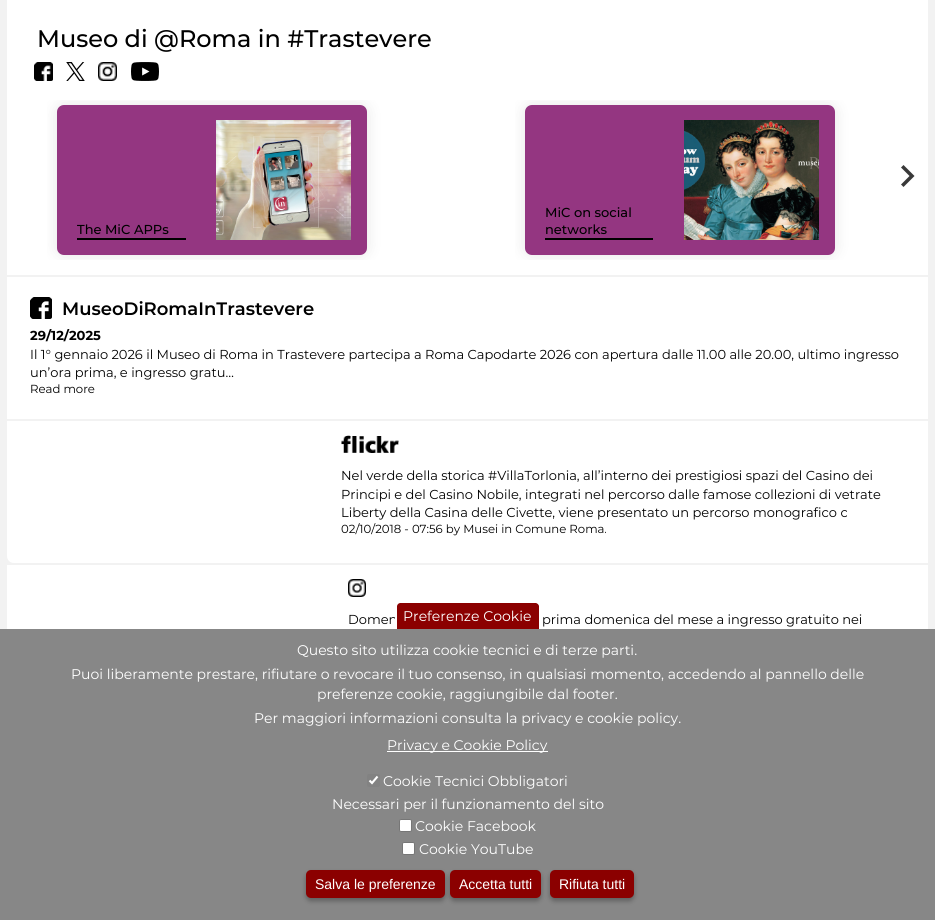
#include <cairo.h>
#include <math.h>
#include <stddef.h>

typedef struct { const char *family; double size; int italic, bold; unsigned color; } style_t;
static cairo_t *ctx;

static void ink(unsigned color) {
    cairo_set_source_rgb(ctx, (color >> 16) / 255.0, (color >> 8 & 255) / 255.0, (color & 255) / 255.0);
}

static void write(double x, double y, const char *s, const style_t *st) {
    cairo_select_font_face(ctx, st->family, st->italic ? CAIRO_FONT_SLANT_ITALIC : CAIRO_FONT_SLANT_NORMAL,
        st->bold ? CAIRO_FONT_WEIGHT_BOLD : CAIRO_FONT_WEIGHT_NORMAL);
    cairo_set_font_size(ctx, st->size);
    ink(st->color);
    cairo_move_to(ctx, x, y);
    cairo_show_text(ctx, s);
}

static void block(double x, double y, double w, double h, unsigned color) {
    ink(color);
    cairo_rectangle(ctx, x, y, w, h);
    cairo_fill(ctx);
}

static void round_path(double x, double y, double w, double h, double r) {
    cairo_new_sub_path(ctx);
    cairo_arc(ctx, x + w - r, y + h - r, r, 0, M_PI / 2);
    cairo_arc(ctx, x + r, y + h - r, r, M_PI / 2, M_PI);
    cairo_arc(ctx, x + r, y + r, r, M_PI, 1.5 * M_PI);
    cairo_arc(ctx, x + w - r, y + r, r, 1.5 * M_PI, 2 * M_PI);
    cairo_close_path(ctx);
}

static void blur_box(double x, double y, double w, double h, double r, double blur, double alpha) {
    cairo_push_group_with_content(ctx, CAIRO_CONTENT_ALPHA);
    cairo_set_operator(ctx, CAIRO_OPERATOR_SOURCE);
    for (int i = 15; i >= -15 && fmin(w, h) + blur * i / 3 > 0; i -= 2) {
        double e = blur * i / 6;
        cairo_set_source_rgba(ctx, 0, 0, 0, alpha * erfc((i - 1) / 8.5) / 2);
        round_path(x - e, y - e, w + 2 * e, h + 2 * e, fmax(0, fmin(r + e + blur * .6, fmin(w, h) / 2 + e)));
        cairo_fill(ctx);
    }
    cairo_pattern_t *soft = cairo_pop_group(ctx);
    cairo_mask(ctx, soft);
    cairo_pattern_destroy(soft);
}

static void paste(const char *path, double x, double y, double w, double h) {
    cairo_surface_t *image = cairo_image_surface_create_from_png(path);
    cairo_save(ctx);
    cairo_set_source_surface(ctx, image, x, y);
    cairo_rectangle(ctx, x, y, w, h);
    cairo_fill(ctx);
    cairo_restore(ctx);
    cairo_surface_destroy(image);
}

static const style_t s1 = {"Montserrat Medium", 24, 0, 0, 0x000000};
static const style_t s2 = {"Montserrat Medium", 13, 0, 0, 0x000000};
static const style_t s3 = {"Montserrat SemiBold", 18, 0, 0, 0x000000};
static const style_t s4 = {"Montserrat", 13, 0, 1, 0x000000};
static const style_t s5 = {"Montserrat", 13, 0, 0, 0x000000};
static const style_t s6 = {"Montserrat", 11.7, 0, 0, 0x000000};
static const style_t s7 = {"Montserrat", 14, 0, 0, 0xffffff};
static const style_t s8 = {"Liberation Sans", 14, 0, 0, 0xffffff};

int main(void) {
    cairo_surface_t *surface = cairo_image_surface_create(CAIRO_FORMAT_RGB24, 935, 920);
    ctx = cairo_create(surface);
    cairo_font_options_t *options = cairo_font_options_create();
    cairo_font_options_set_hint_metrics(options, CAIRO_HINT_METRICS_OFF);
    cairo_font_options_set_hint_style(options, CAIRO_HINT_STYLE_NONE);
    cairo_set_font_options(ctx, options);
    cairo_set_miter_limit(ctx, 4);
    ink(0xf2f2f2);
    cairo_paint(ctx);
    block(7, 0, 921, 275, 0xffffff);
    write(37, 47, "Museo di @Roma in #Trastevere", &s1);
    paste("pic1.png", 34, 62, 19, 19);
    paste("pic2.png", 66, 62, 19, 19);
    paste("pic3.png", 98, 62, 19, 19);
    paste("pic4.png", 131, 62, 28, 19);
    ink(0x393939);
    cairo_new_path(ctx);
    cairo_move_to(ctx, 901, 167.5);
    cairo_line_to(ctx, 909.5, 176);
    cairo_line_to(ctx, 901, 184.5);
    cairo_line_to(ctx, 903.5, 187);
    cairo_line_to(ctx, 914.5, 176);
    cairo_line_to(ctx, 903.5, 165);
    cairo_close_path(ctx);
    cairo_fill(ctx);
    block(7, 277, 921, 142, 0xffffff);
    cairo_save(ctx);
    cairo_rectangle(ctx, 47, 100, 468, 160);
    cairo_clip(ctx);
    ink(0x000000);
    blur_box(57, 105, 310, 150, 7, 7.5, 0.1);
    cairo_restore(ctx);
    ink(0x943681);
    round_path(57, 105, 310, 150, 7);
    cairo_fill(ctx);
    block(77, 238, 109, 2, 0x000000);
    write(77, 234, "The MiC APPs", &s2);
    paste("pic5.png", 216, 120, 135, 120);
    cairo_save(ctx);
    cairo_rectangle(ctx, 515, 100, 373, 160);
    cairo_clip(ctx);
    ink(0x000000);
    blur_box(525, 105, 310, 150, 7, 7.5, 0.1);
    cairo_restore(ctx);
    ink(0x943681);
    round_path(525, 105, 310, 150, 7);
    cairo_fill(ctx);
    block(545, 238, 108, 2, 0x000000);
    write(545, 217, "MiC on social", &s2);
    write(545, 234, "networks", &s2);
    paste("pic6.png", 684, 120, 135, 120);
    paste("pic7.png", 30, 297, 22, 22);
    write(62, 315, "MuseoDiRomaInTrastevere", &s3);
    write(30, 340, "29/12/2025", &s4);
    write(30, 359, "Il 1° gennaio 2026 il Museo di Roma in Trastevere partecipa a Roma Capodarte 2026 con apertura dalle 11.00 alle 20.00, ultimo ingresso", &s5);
    write(30, 377, "un’ora prima, e ingresso gratu…", &s5);
    write(30, 393, "Read more", &s6);
    ink(0xffffff);
    cairo_new_path(ctx);
    cairo_move_to(ctx, 7, 419);
    cairo_line_to(ctx, 928, 419);
    cairo_line_to(ctx, 928, 563);
    cairo_line_to(ctx, 14, 563);
    cairo_curve_to(ctx, 10, 563, 7, 560, 7, 556);
    cairo_close_path(ctx);
    cairo_fill(ctx);
    block(7, 419, 921, 2, 0xf2f2f2);
    paste("pic8.png", 341, 435, 58, 18);
    write(341, 480, "Nel verde della storica #VillaTorlonia, all’interno dei prestigiosi spazi del Casino dei", &s5);
    write(341, 499, "Principi e del Casino Nobile, integrati nel percorso dalle famose collezioni di vetrate", &s5);
    write(341, 517, "Liberty della Casina delle Civette, viene presentato un percorso monografico c", &s5);
    write(341, 533, "02/10/2018 - 07:56 by Musei in Comune Roma.", &s6);
    block(7, 565, 921, 64, 0xffffff);
    paste("pic9.png", 348, 579, 18, 18);
    write(348, 624, "Domen", &s5);
    write(542, 624, "prima domenica del mese a ingresso gratuito nei", &s5);
    block(0, 629, 935, 291, 0x878787);
    ink(0x8b0000);
    cairo_new_path(ctx);
    cairo_move_to(ctx, 400, 603);
    cairo_line_to(ctx, 536, 603);
    cairo_curve_to(ctx, 537.5, 603, 539, 604.5, 539, 606);
    cairo_line_to(ctx, 539, 629);
    cairo_line_to(ctx, 397, 629);
    cairo_line_to(ctx, 397, 606);
    cairo_curve_to(ctx, 397, 604.5, 398.5, 603, 400, 603);
    cairo_close_path(ctx);
    cairo_fill(ctx);
    ink(0xffffff);
    cairo_set_fill_rule(ctx, CAIRO_FILL_RULE_EVEN_ODD);
    cairo_new_path(ctx);
    cairo_move_to(ctx, 400, 601);
    cairo_line_to(ctx, 536, 601);
    cairo_curve_to(ctx, 539, 601, 541, 603, 541, 606);
    cairo_line_to(ctx, 541, 629);
    cairo_line_to(ctx, 395, 629);
    cairo_line_to(ctx, 395, 606);
    cairo_curve_to(ctx, 395, 603, 397, 601, 400, 601);
    cairo_close_path(ctx);
    cairo_move_to(ctx, 400, 603);
    cairo_line_to(ctx, 536, 603);
    cairo_curve_to(ctx, 537, 603, 539, 604, 539, 606);
    cairo_line_to(ctx, 539, 629);
    cairo_line_to(ctx, 397, 629);
    cairo_line_to(ctx, 397, 606);
    cairo_curve_to(ctx, 397, 604, 398, 603, 400, 603);
    cairo_close_path(ctx);
    cairo_fill(ctx);
    write(403, 621, "Preferenze Cookie", &s7);
    write(297, 655, "Questo sito utilizza cookie tecnici e di terze parti.", &s7);
    write(71, 679, "Puoi liberamente prestare, rifiutare o revocare il tuo consenso, in qualsiasi momento, accedendo al pannello delle", &s7);
    write(317, 699, "preferenze cookie, raggiungibile dal footer.", &s7);
    write(254, 723, "Per maggiori informazioni consulta la privacy e cookie policy.", &s7);
    block(387, 751, 161, 1, 0xffffff);
    write(387, 750, "Privacy e Cookie Policy", &s7);
    ink(0x828282);
    round_path(367, 774, 13, 13, 2);
    cairo_fill(ctx);
    cairo_new_path(ctx);
    cairo_move_to(ctx, 369.5, 780.5);
    cairo_line_to(ctx, 372, 783);
    cairo_line_to(ctx, 377.5, 776.5);
    ink(0xffffff);
    cairo_set_line_width(ctx, 2.1);
    cairo_stroke(ctx);
    write(383, 786, "Cookie Tecnici Obbligatori", &s7);
    write(332, 809, "Necessari per il funzionamento del sito", &s7);
    round_path(399.5, 819.5, 12, 12, 1.5);
    cairo_fill_preserve(ctx);
    ink(0x767676);
    cairo_set_line_width(ctx, 1);
    cairo_stroke(ctx);
    write(415, 831, "Cookie Facebook", &s7);
    round_path(402.5, 842.5, 12, 12, 1.5);
    cairo_fill_preserve(ctx);
    ink(0x767676);
    cairo_stroke(ctx);
    write(419, 854, "Cookie YouTube", &s7);
    ink(0x000000);
    blur_box(306, 873, 139, 28, 5, 2.5, 0.3);
    ink(0x8b0000);
    round_path(306, 870, 139, 28, 5);
    cairo_fill(ctx);
    write(315, 889, "Salva le preferenze", &s8);
    ink(0x000000);
    blur_box(450, 873, 91, 28, 5, 2.5, 0.3);
    ink(0x8b0000);
    round_path(450, 870, 91, 28, 5);
    cairo_fill(ctx);
    write(459, 889, "Accetta tutti", &s8);
    ink(0x000000);
    blur_box(550, 873, 84, 28, 5, 2.5, 0.3);
    ink(0x8b0000);
    round_path(550, 870, 84, 28, 5);
    cairo_fill(ctx);
    write(559, 889, "Rifiuta tutti", &s8);
    cairo_surface_write_to_png(surface, "screenshot.png");
    cairo_font_options_destroy(options);
    cairo_destroy(ctx);
    cairo_surface_destroy(surface);
    return 0;
}
